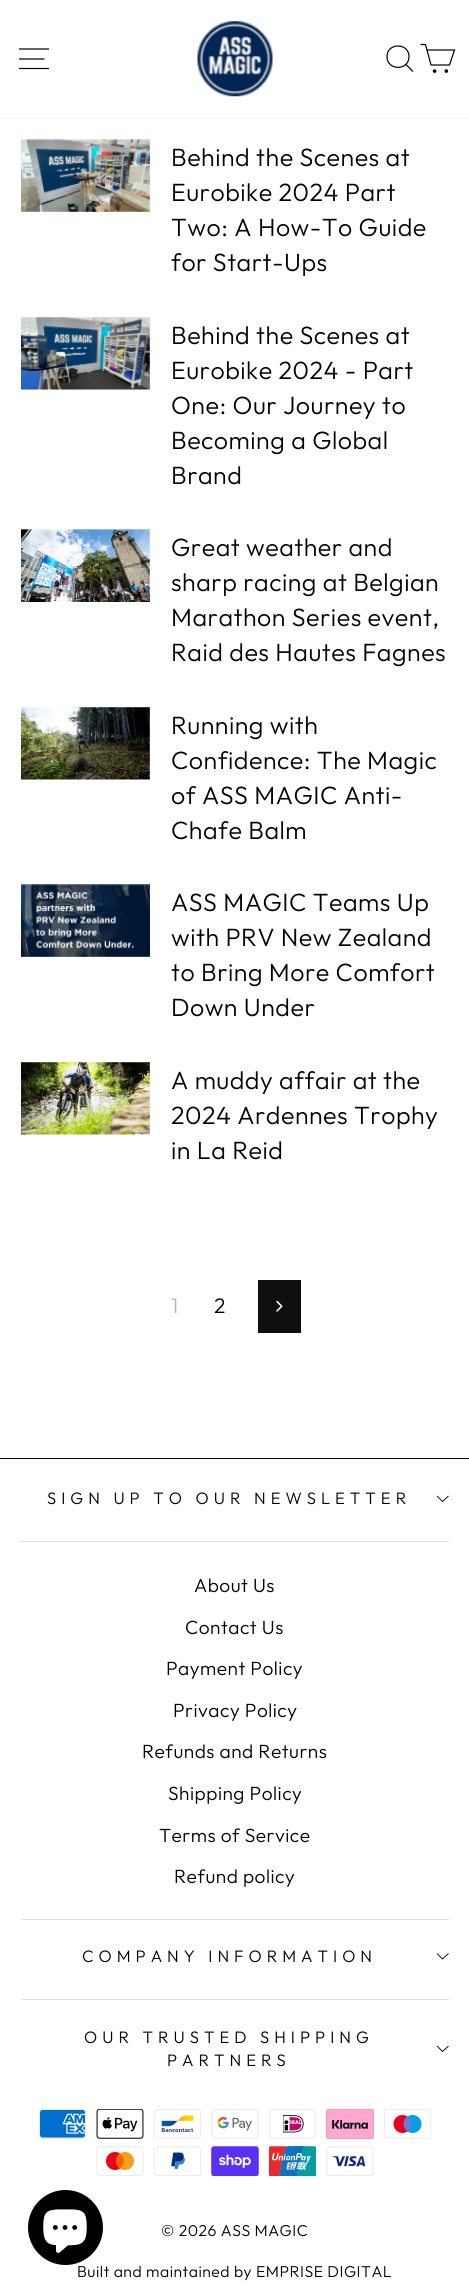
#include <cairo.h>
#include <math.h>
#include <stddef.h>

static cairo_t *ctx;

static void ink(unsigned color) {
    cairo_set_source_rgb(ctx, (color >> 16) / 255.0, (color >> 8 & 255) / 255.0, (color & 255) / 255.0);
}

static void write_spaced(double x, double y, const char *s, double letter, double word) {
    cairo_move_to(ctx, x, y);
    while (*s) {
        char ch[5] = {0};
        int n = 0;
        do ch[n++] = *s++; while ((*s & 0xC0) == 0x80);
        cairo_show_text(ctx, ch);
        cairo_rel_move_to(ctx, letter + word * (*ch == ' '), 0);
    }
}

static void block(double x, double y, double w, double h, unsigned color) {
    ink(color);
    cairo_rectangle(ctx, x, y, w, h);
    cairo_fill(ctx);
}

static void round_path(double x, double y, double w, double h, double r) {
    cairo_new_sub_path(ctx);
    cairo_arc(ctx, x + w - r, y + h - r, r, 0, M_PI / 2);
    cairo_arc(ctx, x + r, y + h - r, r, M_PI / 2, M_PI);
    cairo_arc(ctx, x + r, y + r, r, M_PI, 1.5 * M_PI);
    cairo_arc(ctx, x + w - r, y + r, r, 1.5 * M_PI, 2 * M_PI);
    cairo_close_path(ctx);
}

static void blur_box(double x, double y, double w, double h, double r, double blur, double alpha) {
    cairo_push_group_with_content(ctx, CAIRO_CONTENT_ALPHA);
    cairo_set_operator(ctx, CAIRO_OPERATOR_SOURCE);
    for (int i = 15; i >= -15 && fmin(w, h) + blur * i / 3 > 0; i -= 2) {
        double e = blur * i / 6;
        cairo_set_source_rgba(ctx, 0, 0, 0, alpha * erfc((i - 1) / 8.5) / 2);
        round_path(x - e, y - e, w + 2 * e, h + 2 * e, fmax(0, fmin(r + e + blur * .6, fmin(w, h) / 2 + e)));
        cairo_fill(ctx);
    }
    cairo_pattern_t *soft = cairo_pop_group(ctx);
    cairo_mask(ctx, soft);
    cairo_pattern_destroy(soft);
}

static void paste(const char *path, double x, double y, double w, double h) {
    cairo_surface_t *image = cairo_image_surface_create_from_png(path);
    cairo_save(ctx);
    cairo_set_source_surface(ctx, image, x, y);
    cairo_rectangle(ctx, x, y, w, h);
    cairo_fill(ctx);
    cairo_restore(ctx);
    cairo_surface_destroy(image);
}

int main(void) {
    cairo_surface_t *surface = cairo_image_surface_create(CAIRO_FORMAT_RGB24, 469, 2291);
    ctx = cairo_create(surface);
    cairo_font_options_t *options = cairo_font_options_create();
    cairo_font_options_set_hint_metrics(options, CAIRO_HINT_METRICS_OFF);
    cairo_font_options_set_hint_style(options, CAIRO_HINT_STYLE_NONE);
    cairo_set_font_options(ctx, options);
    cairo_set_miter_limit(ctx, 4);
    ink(0xffffff);
    cairo_paint(ctx);
    ink(0x000000);
    blur_box(0, 0, 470, 118, 0, 0.5, 0.2);
    block(0, 0, 469, 118, 0xffffff);
    cairo_new_path(ctx);
    cairo_move_to(ctx, 19, 49);
    cairo_line_to(ctx, 49, 49);
    cairo_move_to(ctx, 19, 59);
    cairo_line_to(ctx, 44.5, 59);
    cairo_move_to(ctx, 19, 68.5);
    cairo_line_to(ctx, 49, 68.5);
    ink(0x000000);
    cairo_set_line_width(ctx, 1.2);
    cairo_stroke(ctx);
    paste("pic1.png", 197, 21, 76, 76);
    cairo_new_path(ctx);
    cairo_move_to(ctx, 409, 56.5);
    cairo_curve_to(ctx, 409, 71, 387, 71, 387, 56.5);
    cairo_curve_to(ctx, 387, 42.5, 409, 42.5, 409, 56.5);
    cairo_close_path(ctx);
    cairo_move_to(ctx, 413, 71.5);
    cairo_line_to(ctx, 406, 64.5);
    cairo_stroke(ctx);
    cairo_new_path(ctx);
    cairo_move_to(ctx, 427, 50);
    cairo_line_to(ctx, 454.5, 50);
    cairo_line_to(ctx, 449.5, 65);
    cairo_line_to(ctx, 431, 65);
    cairo_line_to(ctx, 425.5, 44.5);
    cairo_line_to(ctx, 420.5, 44.5);
    cairo_stroke(ctx);
    cairo_arc(ctx, 434.6, 71.1, 1.2, 0, 2 * M_PI);
    cairo_fill_preserve(ctx);
    cairo_stroke(ctx);
    cairo_arc(ctx, 446.3, 71.1, 1.2, 0, 2 * M_PI);
    cairo_fill_preserve(ctx);
    cairo_stroke(ctx);
    paste("pic2.png", 21, 139, 129, 73);
    cairo_select_font_face(ctx, "Outfit Light", CAIRO_FONT_SLANT_NORMAL, CAIRO_FONT_WEIGHT_NORMAL);
    cairo_set_font_size(ctx, 25);
    write_spaced(171, 166, "Behind the Scenes at", 0.5, 0);
    write_spaced(171, 201, "Eurobike 2024 Part", 0.5, 0);
    write_spaced(171, 236, "Two: A How-To Guide", 0.5, 0);
    write_spaced(171, 271, "for Start-Ups", 0.5, 0);
    paste("pic3.png", 21, 317, 129, 73);
    write_spaced(171, 344, "Behind the Scenes at", 0.5, 0);
    write_spaced(171, 379, "Eurobike 2024 - Part", 0.5, 0);
    write_spaced(171, 414, "One: Our Journey to", 0.5, 0);
    write_spaced(171, 449, "Becoming a Global", 0.5, 0);
    write_spaced(171, 484, "Brand", 0.5, 0);
    paste("pic4.png", 21, 529, 129, 73);
    write_spaced(171, 556, "Great weather and", 0.5, 0);
    write_spaced(171, 591, "sharp racing at Belgian", 0.5, 0);
    write_spaced(171, 626, "Marathon Series event,", 0.5, 0);
    write_spaced(171, 661, "Raid des Hautes Fagnes", 0.5, 0);
    paste("pic5.png", 21, 707, 129, 73);
    write_spaced(171, 734, "Running with", 0.5, 0);
    write_spaced(171, 769, "Confidence: The Magic", 0.5, 0);
    write_spaced(171, 804, "of ASS MAGIC Anti-", 0.5, 0);
    write_spaced(171, 839, "Chafe Balm", 0.5, 0);
    paste("pic6.png", 21, 884, 129, 73);
    write_spaced(171, 911, "ASS MAGIC Teams Up", 0.5, 0);
    write_spaced(171, 946, "with PRV New Zealand", 0.5, 0);
    write_spaced(171, 981, "to Bring More Comfort", 0.5, 0);
    write_spaced(171, 1016, "Down Under", 0.5, 0);
    paste("pic7.png", 21, 1062, 129, 73);
    write_spaced(171, 1089, "A muddy affair at the", 0.5, 0);
    write_spaced(171, 1124, "2024 Ardennes Trophy", 0.5, 0);
    write_spaced(171, 1159, "in La Reid", 0.5, 0);
    cairo_set_font_size(ctx, 21);
    ink(0xb3b3b3);
    write_spaced(171, 1313, "1", 0.5, 0);
    ink(0x000000);
    write_spaced(214, 1313, "2", 0.5, 0);
    block(258, 1280, 43, 53, 0x0f0f0f);
    paste("pic8.png", 276, 1300, 7, 12);
    block(0, 1458, 469, 1, 0x000000);
    cairo_set_font_size(ctx, 16.6);
    write_spaced(47, 1504, "SIGN UP TO OUR NEWSLETTER", 5, 0);
    cairo_new_path(ctx);
    cairo_move_to(ctx, 437, 1496);
    cairo_line_to(ctx, 442.5, 1501.5);
    cairo_line_to(ctx, 448.5, 1496);
    cairo_set_line_width(ctx, 0.9);
    cairo_stroke(ctx);
    block(21, 1541, 428, 1, 0xe0e0e0);
    cairo_set_font_size(ctx, 19.1);
    ink(0x000000);
    write_spaced(194, 1592, "About Us", 0.5, 0);
    write_spaced(185, 1634, "Contact Us", 0.5, 0);
    write_spaced(166, 1675, "Payment Policy", 0.5, 0);
    write_spaced(173, 1717, "Privacy Policy", 0.5, 0);
    write_spaced(142, 1758, "Refunds and Returns", 0.5, 0);
    write_spaced(168, 1800, "Shipping Policy", 0.5, 0);
    write_spaced(159, 1842, "Terms of Service", 0.5, 0);
    write_spaced(174, 1883, "Refund policy", 0.5, 0);
    block(21, 1919, 428, 1, 0xe0e0e0);
    cairo_set_font_size(ctx, 16.6);
    ink(0x000000);
    write_spaced(82, 1962, "COMPANY INFORMATION", 5, 0);
    cairo_new_path(ctx);
    cairo_move_to(ctx, 437, 1953.5);
    cairo_line_to(ctx, 442.5, 1959);
    cairo_line_to(ctx, 448.5, 1953.5);
    cairo_stroke(ctx);
    block(21, 1999, 428, 1, 0xe0e0e0);
    ink(0x000000);
    write_spaced(84, 2043, "OUR TRUSTED SHIPPING", 5, 0);
    cairo_new_path(ctx);
    cairo_move_to(ctx, 437, 2046);
    cairo_line_to(ctx, 442.5, 2051.5);
    cairo_line_to(ctx, 448.5, 2046);
    cairo_stroke(ctx);
    write_spaced(167, 2066, "PARTNERS", 5, 0);
    paste("pic9.png", 39, 2109, 47, 30);
    paste("pic10.png", 96, 2109, 48, 30);
    paste("pic11.png", 154, 2109, 47, 30);
    paste("pic12.png", 211, 2109, 48, 30);
    paste("pic13.png", 269, 2109, 47, 30);
    paste("pic14.png", 326, 2109, 48, 30);
    paste("pic15.png", 384, 2109, 47, 30);
    paste("pic16.png", 96, 2146, 48, 30);
    paste("pic17.png", 154, 2146, 47, 30);
    paste("pic18.png", 211, 2146, 48, 30);
    paste("pic19.png", 269, 2146, 47, 30);
    paste("pic20.png", 326, 2146, 48, 30);
    cairo_set_font_size(ctx, 15.75);
    write_spaced(161, 2236, "© 2026 ASS MAGIC", 0.5, 0);
    write_spaced(77, 2277, "Built and maintained by EMPRISE DIGITAL", 0.5, 0);
    cairo_new_path(ctx);
    cairo_arc(ctx, 65.5, 2227.5, 37.5, 0, 2 * M_PI);
    cairo_fill(ctx);
    paste("pic21.png", 43, 2209, 44, 44);
    cairo_surface_write_to_png(surface, "screenshot.png");
    cairo_font_options_destroy(options);
    cairo_destroy(ctx);
    cairo_surface_destroy(surface);
    return 0;
}
